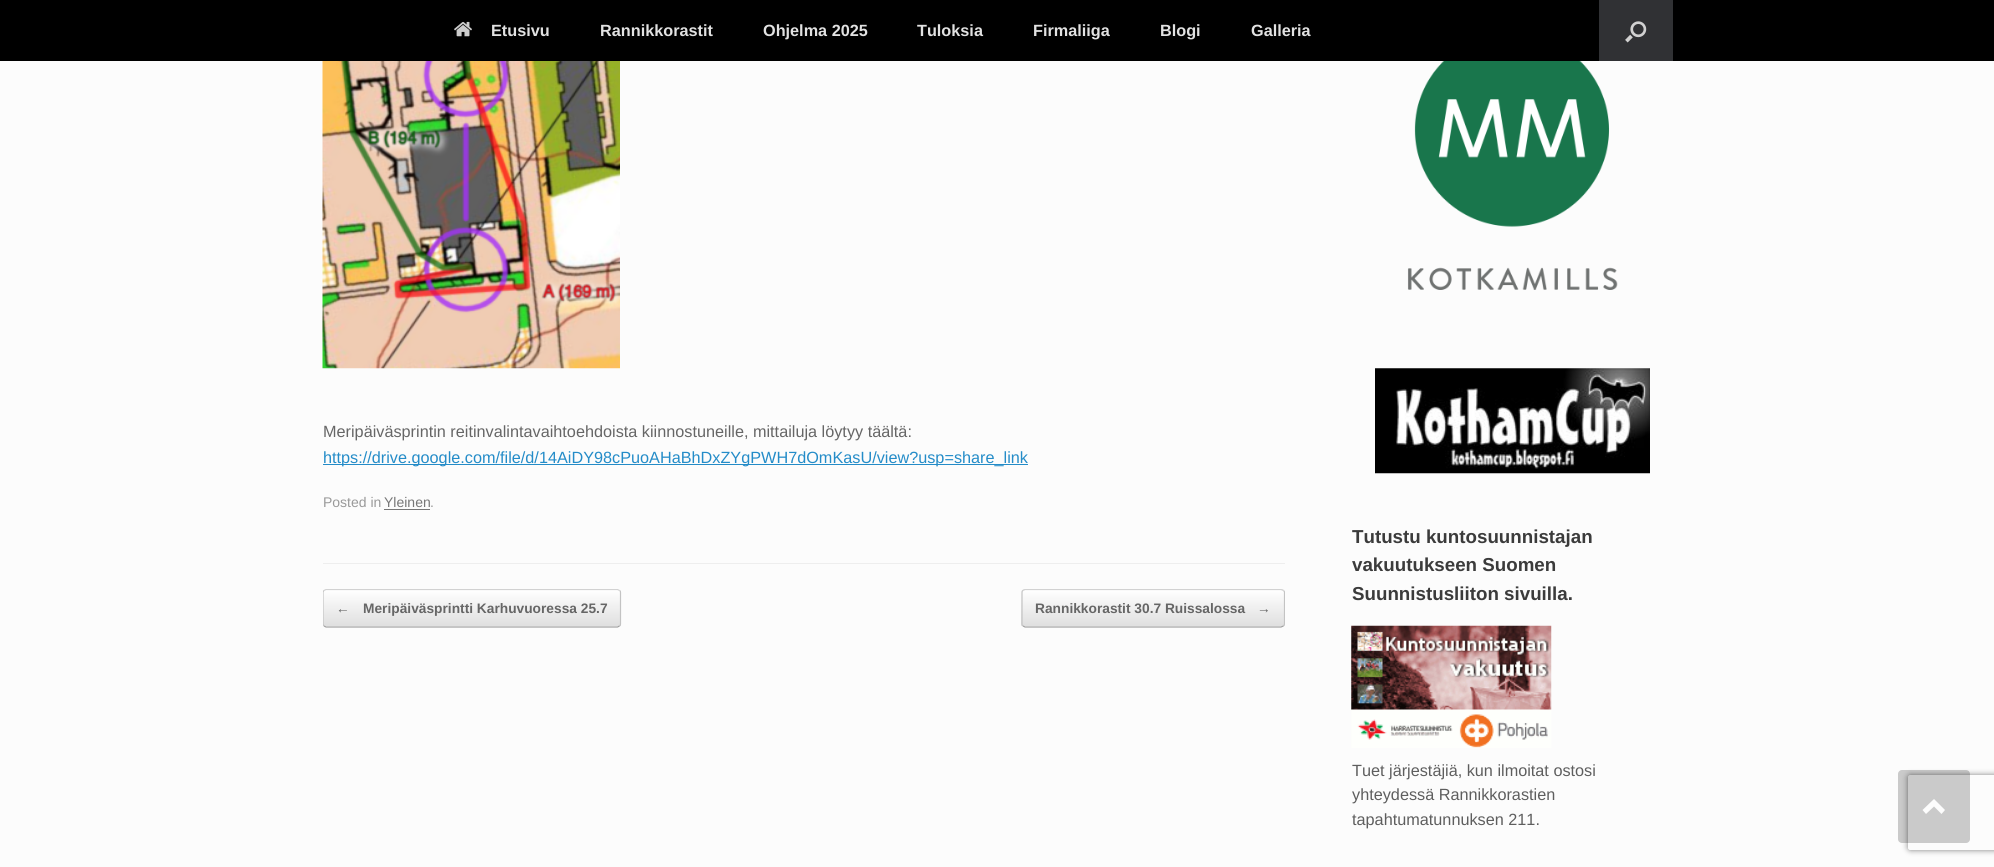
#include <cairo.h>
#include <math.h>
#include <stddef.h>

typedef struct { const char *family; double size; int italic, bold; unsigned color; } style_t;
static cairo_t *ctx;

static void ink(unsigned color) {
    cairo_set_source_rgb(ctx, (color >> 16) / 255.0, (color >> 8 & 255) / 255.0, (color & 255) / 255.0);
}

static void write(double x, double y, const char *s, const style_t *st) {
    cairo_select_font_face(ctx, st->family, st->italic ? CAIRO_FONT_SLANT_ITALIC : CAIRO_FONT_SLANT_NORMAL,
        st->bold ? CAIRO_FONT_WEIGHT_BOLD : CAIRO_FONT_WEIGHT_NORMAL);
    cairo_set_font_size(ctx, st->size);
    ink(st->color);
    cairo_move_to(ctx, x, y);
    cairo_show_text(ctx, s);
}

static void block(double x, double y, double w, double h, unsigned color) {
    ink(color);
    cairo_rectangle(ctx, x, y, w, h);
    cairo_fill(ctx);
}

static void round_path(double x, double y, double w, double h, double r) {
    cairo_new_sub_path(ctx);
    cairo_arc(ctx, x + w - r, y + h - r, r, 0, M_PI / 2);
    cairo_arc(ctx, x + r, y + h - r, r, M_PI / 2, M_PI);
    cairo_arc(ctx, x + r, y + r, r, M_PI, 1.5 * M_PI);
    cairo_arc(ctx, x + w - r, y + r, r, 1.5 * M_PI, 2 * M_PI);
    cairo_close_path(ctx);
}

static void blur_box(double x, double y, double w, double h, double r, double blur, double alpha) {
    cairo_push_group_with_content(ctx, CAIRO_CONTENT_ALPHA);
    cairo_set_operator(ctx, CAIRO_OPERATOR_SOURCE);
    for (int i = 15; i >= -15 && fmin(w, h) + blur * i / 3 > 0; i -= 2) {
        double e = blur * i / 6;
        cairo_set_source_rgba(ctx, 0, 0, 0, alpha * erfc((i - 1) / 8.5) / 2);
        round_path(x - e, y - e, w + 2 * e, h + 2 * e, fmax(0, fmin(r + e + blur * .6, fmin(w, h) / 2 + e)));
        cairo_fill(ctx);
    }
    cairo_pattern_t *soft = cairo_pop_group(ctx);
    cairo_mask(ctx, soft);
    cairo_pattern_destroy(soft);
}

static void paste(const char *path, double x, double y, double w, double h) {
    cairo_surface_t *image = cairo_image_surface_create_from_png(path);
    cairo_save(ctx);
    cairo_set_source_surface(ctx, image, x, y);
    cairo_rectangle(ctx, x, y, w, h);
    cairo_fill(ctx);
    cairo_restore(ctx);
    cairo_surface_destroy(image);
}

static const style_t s1 = {"Liberation Sans", 16.25, 0, 1, 0xe2e2e2};
static const style_t s2 = {"Liberation Sans", 16.25, 0, 0, 0x666666};
static const style_t s3 = {"Liberation Sans", 16.25, 0, 0, 0x248cc8};
static const style_t s4 = {"Liberation Sans", 14, 0, 0, 0x999999};
static const style_t s5 = {"Liberation Sans", 14, 0, 0, 0x777777};
static const style_t s6 = {"Liberation Sans", 13.75, 0, 1, 0x666666};
static const style_t s7 = {"Liberation Sans", 18.75, 0, 1, 0x3b3b3b};
static const style_t s8 = {"Liberation Sans", 16.25, 0, 0, 0x5e5e5e};

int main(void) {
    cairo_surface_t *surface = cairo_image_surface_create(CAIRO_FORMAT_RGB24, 1994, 867);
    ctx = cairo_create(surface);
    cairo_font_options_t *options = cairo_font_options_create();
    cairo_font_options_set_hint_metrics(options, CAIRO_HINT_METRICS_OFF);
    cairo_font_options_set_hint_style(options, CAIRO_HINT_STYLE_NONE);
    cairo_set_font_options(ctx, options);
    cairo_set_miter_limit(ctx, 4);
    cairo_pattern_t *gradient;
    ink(0xfcfcfc);
    cairo_paint(ctx);
    block(0, 0, 1994, 61, 0x000000);
    paste("pic1.png", 454, 21, 18, 16);
    write(491, 36, "Etusivu", &s1);
    write(600, 36, "Rannikkorastit", &s1);
    write(763, 36, "Ohjelma 2025", &s1);
    write(917, 36, "Tuloksia", &s1);
    write(1033, 36, "Firmaliiga", &s1);
    write(1160, 36, "Blogi", &s1);
    write(1251, 36, "Galleria", &s1);
    block(1599, 0, 74, 61, 0x303134);
    paste("pic2.png", 1625, 21, 22, 22);
    block(323, 563, 962, 1, 0xeeeeee);
    paste("pic3.png", 322, 61, 298, 308);
    write(323, 437, "Meripäiväsprintin reitinvalintavaihtoehdoista kiinnostuneille, mittailuja löytyy täältä:", &s2);
    block(323, 464, 705, 1, 0x248cc8);
    write(323, 463, "https://drive.google.com/file/d/14AiDY98cPuoAHaBhDxZYgPWH7dOmKasU/view?usp=share_link", &s3);
    write(323, 507, "Posted in", &s4);
    write(384, 507, "Yleinen", &s5);
    block(384, 509, 46, 1, 0x777777);
    write(430, 507, ".", &s4);
    cairo_save(ctx);
    round_path(323, 589, 298, 39, 4);
    cairo_clip(ctx);
    gradient = cairo_pattern_create_linear(324, 626, 324, 590);
    cairo_pattern_add_color_stop_rgba(gradient, 0, 0.875, 0.875, 0.875, 1);
    cairo_pattern_add_color_stop_rgba(gradient, 1, 1, 1, 1, 1);
    cairo_set_source(ctx, gradient);
    cairo_pattern_destroy(gradient);
    cairo_rectangle(ctx, 323, 590, 298, 36);
    cairo_fill(ctx);
    gradient = cairo_pattern_create_linear(324, 663, 324, 626);
    cairo_pattern_add_color_stop_rgba(gradient, 0, 0.875, 0.875, 0.875, 1);
    cairo_pattern_add_color_stop_rgba(gradient, 1, 1, 1, 1, 1);
    cairo_set_source(ctx, gradient);
    cairo_pattern_destroy(gradient);
    cairo_rectangle(ctx, 323, 626, 298, 2);
    cairo_fill(ctx);
    cairo_restore(ctx);
    cairo_save(ctx);
    cairo_rectangle(ctx, 323, 589, 962, 39);
    cairo_clip(ctx);
    cairo_new_path(ctx);
    cairo_move_to(ctx, 324, 590.5);
    cairo_line_to(ctx, 326, 589.5);
    cairo_line_to(ctx, 617.5, 589.5);
    cairo_line_to(ctx, 619.5, 590.5);
    ink(0xd2d2d2);
    cairo_set_line_width(ctx, 1.2);
    cairo_stroke(ctx);
    cairo_restore(ctx);
    cairo_new_path(ctx);
    cairo_move_to(ctx, 619.5, 590.5);
    cairo_curve_to(ctx, 620.5, 591, 620.5, 591.5, 620.5, 592.5);
    cairo_line_to(ctx, 620.5, 624);
    cairo_curve_to(ctx, 620.5, 624.5, 620.5, 625.5, 619.5, 626);
    ink(0xc3c3c3);
    cairo_set_line_width(ctx, 1.2);
    cairo_stroke(ctx);
    cairo_new_path(ctx);
    cairo_move_to(ctx, 619.5, 626);
    cairo_line_to(ctx, 617.5, 627);
    cairo_line_to(ctx, 326, 627);
    cairo_line_to(ctx, 324, 626);
    ink(0x9f9f9f);
    cairo_stroke(ctx);
    cairo_save(ctx);
    cairo_rectangle(ctx, 323, 589, 962, 39);
    cairo_clip(ctx);
    cairo_new_path(ctx);
    cairo_move_to(ctx, 324, 626);
    cairo_curve_to(ctx, 323.5, 625.5, 323, 624.5, 323, 624);
    cairo_line_to(ctx, 323, 592.5);
    cairo_curve_to(ctx, 323, 591.5, 323.5, 591, 324, 590.5);
    ink(0xc3c3c3);
    cairo_stroke(ctx);
    cairo_restore(ctx);
    write(336, 613, "←", &s6);
    write(363, 613, "Meripäiväsprintti Karhuvuoressa 25.7", &s6);
    cairo_save(ctx);
    round_path(1021, 589, 264, 39, 4);
    cairo_clip(ctx);
    gradient = cairo_pattern_create_linear(1023, 590, 1023, 554);
    cairo_pattern_add_color_stop_rgba(gradient, 0, 0.875, 0.875, 0.875, 1);
    cairo_pattern_add_color_stop_rgba(gradient, 1, 1, 1, 1, 1);
    cairo_set_source(ctx, gradient);
    cairo_pattern_destroy(gradient);
    cairo_rectangle(ctx, 1021, 589, 264, 1);
    cairo_fill(ctx);
    gradient = cairo_pattern_create_linear(1023, 626, 1023, 590);
    cairo_pattern_add_color_stop_rgba(gradient, 0, 0.875, 0.875, 0.875, 1);
    cairo_pattern_add_color_stop_rgba(gradient, 1, 1, 1, 1, 1);
    cairo_set_source(ctx, gradient);
    cairo_pattern_destroy(gradient);
    cairo_rectangle(ctx, 1021, 590, 264, 36);
    cairo_fill(ctx);
    gradient = cairo_pattern_create_linear(1023, 663, 1023, 626);
    cairo_pattern_add_color_stop_rgba(gradient, 0, 0.875, 0.875, 0.875, 1);
    cairo_pattern_add_color_stop_rgba(gradient, 1, 1, 1, 1, 1);
    cairo_set_source(ctx, gradient);
    cairo_pattern_destroy(gradient);
    cairo_rectangle(ctx, 1021, 626, 264, 2);
    cairo_fill(ctx);
    cairo_restore(ctx);
    cairo_save(ctx);
    cairo_rectangle(ctx, 323, 589, 962, 39);
    cairo_clip(ctx);
    cairo_new_path(ctx);
    cairo_move_to(ctx, 1023, 590.5);
    cairo_line_to(ctx, 1025, 589.5);
    cairo_line_to(ctx, 1281, 589.5);
    cairo_line_to(ctx, 1283.5, 590.5);
    ink(0xd2d2d2);
    cairo_stroke(ctx);
    cairo_new_path(ctx);
    cairo_move_to(ctx, 1283.5, 590.5);
    cairo_curve_to(ctx, 1284, 591, 1284.5, 591.5, 1284.5, 592.5);
    cairo_line_to(ctx, 1284.5, 624);
    cairo_curve_to(ctx, 1284.5, 624.5, 1284, 625.5, 1283.5, 626);
    ink(0xc3c3c3);
    cairo_stroke(ctx);
    cairo_restore(ctx);
    cairo_new_path(ctx);
    cairo_move_to(ctx, 1283.5, 626);
    cairo_line_to(ctx, 1281, 627);
    cairo_line_to(ctx, 1025, 627);
    cairo_line_to(ctx, 1023, 626);
    ink(0x9f9f9f);
    cairo_stroke(ctx);
    cairo_new_path(ctx);
    cairo_move_to(ctx, 1023, 626);
    cairo_curve_to(ctx, 1022, 625.5, 1022, 624.5, 1022, 624);
    cairo_line_to(ctx, 1022, 592.5);
    cairo_curve_to(ctx, 1022, 591.5, 1022, 591, 1023, 590.5);
    ink(0xc3c3c3);
    cairo_stroke(ctx);
    write(1035, 613, "Rannikkorastit 30.7 Ruissalossa", &s6);
    write(1257, 613, "→", &s6);
    paste("pic4.png", 1407, 61, 211, 229);
    paste("pic5.png", 1375, 368, 275, 106);
    write(1352, 543, "Tutustu kuntosuunnistajan", &s7);
    write(1352, 571, "vakuutukseen Suomen", &s7);
    write(1352, 600, "Suunnistusliiton sivuilla.", &s7);
    paste("pic6.png", 1351, 625, 201, 123);
    write(1352, 776, "Tuet järjestäjiä, kun ilmoitat ostosi", &s8);
    write(1352, 800, "yhteydessä Rannikkorastien", &s8);
    write(1352, 825, "tapahtumatunnuksen 211.", &s8);
    cairo_save(ctx);
    cairo_set_fill_rule(ctx, CAIRO_FILL_RULE_EVEN_ODD);
    cairo_new_path(ctx);
    cairo_move_to(ctx, 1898, 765);
    cairo_line_to(ctx, 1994, 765);
    cairo_line_to(ctx, 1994, 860);
    cairo_line_to(ctx, 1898, 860);
    cairo_close_path(ctx);
    cairo_move_to(ctx, 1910.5, 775);
    cairo_line_to(ctx, 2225.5, 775);
    cairo_curve_to(ctx, 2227, 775, 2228, 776, 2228, 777.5);
    cairo_line_to(ctx, 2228, 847.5);
    cairo_curve_to(ctx, 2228, 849, 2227, 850, 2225.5, 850);
    cairo_line_to(ctx, 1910.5, 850);
    cairo_curve_to(ctx, 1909, 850, 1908, 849, 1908, 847.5);
    cairo_line_to(ctx, 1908, 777.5);
    cairo_curve_to(ctx, 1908, 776, 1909, 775, 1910.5, 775);
    cairo_close_path(ctx);
    cairo_clip(ctx);
    ink(0x808080);
    blur_box(1908, 775, 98, 75, 2.5, 3, 1);
    cairo_restore(ctx);
    cairo_set_source_rgba(ctx, 0, 0, 0, 0.2);
    round_path(1898, 770, 72, 73, 4);
    cairo_fill(ctx);
    ink(0xfdfdfd);
    cairo_new_path(ctx);
    cairo_move_to(ctx, 1945, 810);
    cairo_line_to(ctx, 1934, 799);
    cairo_line_to(ctx, 1922.5, 810);
    cairo_line_to(ctx, 1926, 814);
    cairo_line_to(ctx, 1934, 806.5);
    cairo_line_to(ctx, 1941.5, 814);
    cairo_close_path(ctx);
    cairo_fill(ctx);
    cairo_surface_write_to_png(surface, "screenshot.png");
    cairo_font_options_destroy(options);
    cairo_destroy(ctx);
    cairo_surface_destroy(surface);
    return 0;
}
